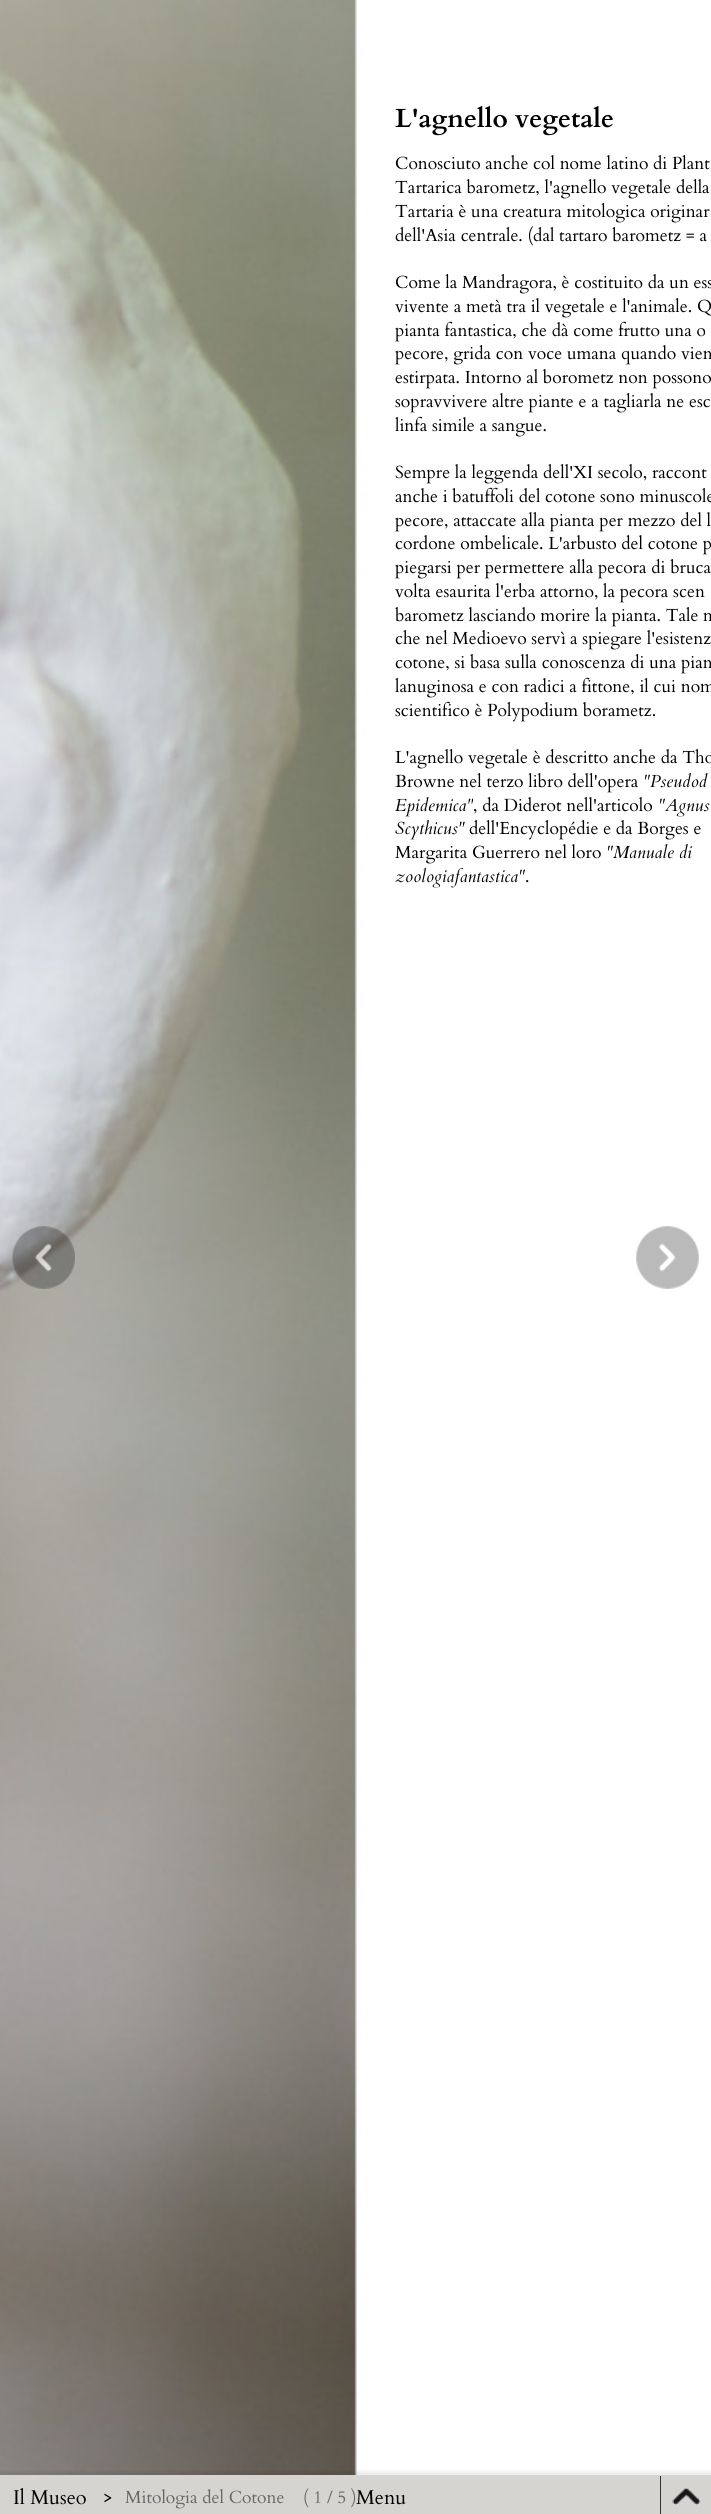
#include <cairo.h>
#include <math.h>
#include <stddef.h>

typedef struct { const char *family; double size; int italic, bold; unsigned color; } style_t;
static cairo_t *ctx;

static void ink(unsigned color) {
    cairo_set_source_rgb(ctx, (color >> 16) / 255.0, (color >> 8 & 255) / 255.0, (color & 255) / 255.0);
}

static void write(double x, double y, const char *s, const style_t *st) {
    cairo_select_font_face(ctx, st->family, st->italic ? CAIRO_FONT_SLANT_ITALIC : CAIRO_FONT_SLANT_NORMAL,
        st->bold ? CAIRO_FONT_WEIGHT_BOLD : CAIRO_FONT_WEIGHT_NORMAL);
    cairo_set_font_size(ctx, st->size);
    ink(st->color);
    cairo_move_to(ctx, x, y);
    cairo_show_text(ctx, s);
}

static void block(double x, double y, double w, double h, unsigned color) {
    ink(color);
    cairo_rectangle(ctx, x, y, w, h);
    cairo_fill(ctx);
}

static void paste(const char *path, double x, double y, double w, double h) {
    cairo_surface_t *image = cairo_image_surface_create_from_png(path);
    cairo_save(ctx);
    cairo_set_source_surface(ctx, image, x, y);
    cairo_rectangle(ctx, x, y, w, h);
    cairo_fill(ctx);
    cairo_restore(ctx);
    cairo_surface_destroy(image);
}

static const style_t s1 = {"Cardo", 26.25, 0, 1, 0x000000};
static const style_t s2 = {"Cardo", 17.5, 0, 0, 0x000000};
static const style_t s3 = {"Cardo", 17.5, 1, 0, 0x000000};
static const style_t s4 = {"Cardo", 20, 0, 0, 0x000000};
static const style_t s5 = {"Cardo", 17.5, 0, 0, 0x666666};

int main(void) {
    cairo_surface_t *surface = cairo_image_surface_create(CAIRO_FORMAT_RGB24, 711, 2514);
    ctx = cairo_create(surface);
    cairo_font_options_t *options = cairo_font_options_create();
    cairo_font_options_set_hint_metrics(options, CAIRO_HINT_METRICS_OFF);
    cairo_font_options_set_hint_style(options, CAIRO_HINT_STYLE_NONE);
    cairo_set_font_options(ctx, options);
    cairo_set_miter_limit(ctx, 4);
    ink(0xffffff);
    cairo_paint(ctx);
    paste("pic1.png", 0, 0, 711, 2475);
    write(395, 127, "L'agnello vegetale", &s1);
    write(395, 169, "Conosciuto anche col nome latino di Plant", &s2);
    write(395, 193, "Tartarica barometz, l'agnello vegetale della", &s2);
    write(395, 217, "Tartaria è una creatura mitologica originar", &s2);
    write(395, 241, "dell'Asia centrale. (dal tartaro barometz = a", &s2);
    write(395, 288, "Come la Mandragora, è costituito da un ess", &s2);
    write(395, 312, "vivente a metà tra il vegetale e l'animale. Q", &s2);
    write(395, 336, "pianta fantastica, che dà come frutto una o", &s2);
    write(395, 359, "pecore, grida con voce umana quando vien", &s2);
    write(395, 383, "estirpata. Intorno al borometz non possono", &s2);
    write(395, 407, "sopravvivere altre piante e a tagliarla ne esc", &s2);
    write(395, 431, "linfa simile a sangue.", &s2);
    write(395, 478, "Sempre la leggenda dell'XI secolo, raccont", &s2);
    write(395, 502, "anche i batuffoli del cotone sono minuscole", &s2);
    write(395, 526, "pecore, attaccate alla pianta per mezzo del l", &s2);
    write(395, 549, "cordone ombelicale. L'arbusto del cotone p", &s2);
    write(395, 573, "piegarsi per permettere alla pecora di bruca", &s2);
    write(395, 597, "volta esaurita l'erba attorno, la pecora scen", &s2);
    write(395, 621, "barometz lasciando morire la pianta. Tale m", &s2);
    write(395, 644, "che nel Medioevo servì a spiegare l'esistenz", &s2);
    write(395, 668, "cotone, si basa sulla conoscenza di una pian", &s2);
    write(395, 692, "lanuginosa e con radici a fittone, il cui nom", &s2);
    write(395, 716, "scientifico è Polypodium borametz.", &s2);
    write(395, 763, "L'agnello vegetale è descritto anche da Tho", &s2);
    write(395, 787, "Browne nel terzo libro dell'opera", &s2);
    write(643, 787, "\"Pseudod", &s3);
    write(395, 811, "Epidemica\"", &s3);
    write(473, 811, ", da Diderot nell'articolo", &s2);
    write(658, 811, "\"Agnus", &s3);
    write(395, 834, "Scythicus\"", &s3);
    write(469, 834, "dell'Encyclopédie e da Borges e", &s2);
    write(395, 858, "Margarita Guerrero nel loro", &s2);
    write(606, 858, "\"Manuale di", &s3);
    write(395, 882, "zoologiafantastica\"", &s3);
    write(525, 882, ".", &s2);
    paste("pic2.png", 12, 1226, 63, 63);
    paste("pic3.png", 636, 1226, 63, 63);
    paste("pic4.png", 0, 2470, 711, 5);
    block(0, 2475, 711, 39, 0xd6d4d1);
    write(13, 2504, "Il Museo   >", &s4);
    write(125, 2503, "Mitologia del Cotone", &s5);
    write(303, 2503, "( 1 / 5 )", &s5);
    write(356, 2504, "Menu", &s4);
    block(660, 2476, 1, 38, 0x333333);
    paste("pic5.png", 672, 2488, 29, 18);
    cairo_surface_write_to_png(surface, "screenshot.png");
    cairo_font_options_destroy(options);
    cairo_destroy(ctx);
    cairo_surface_destroy(surface);
    return 0;
}
